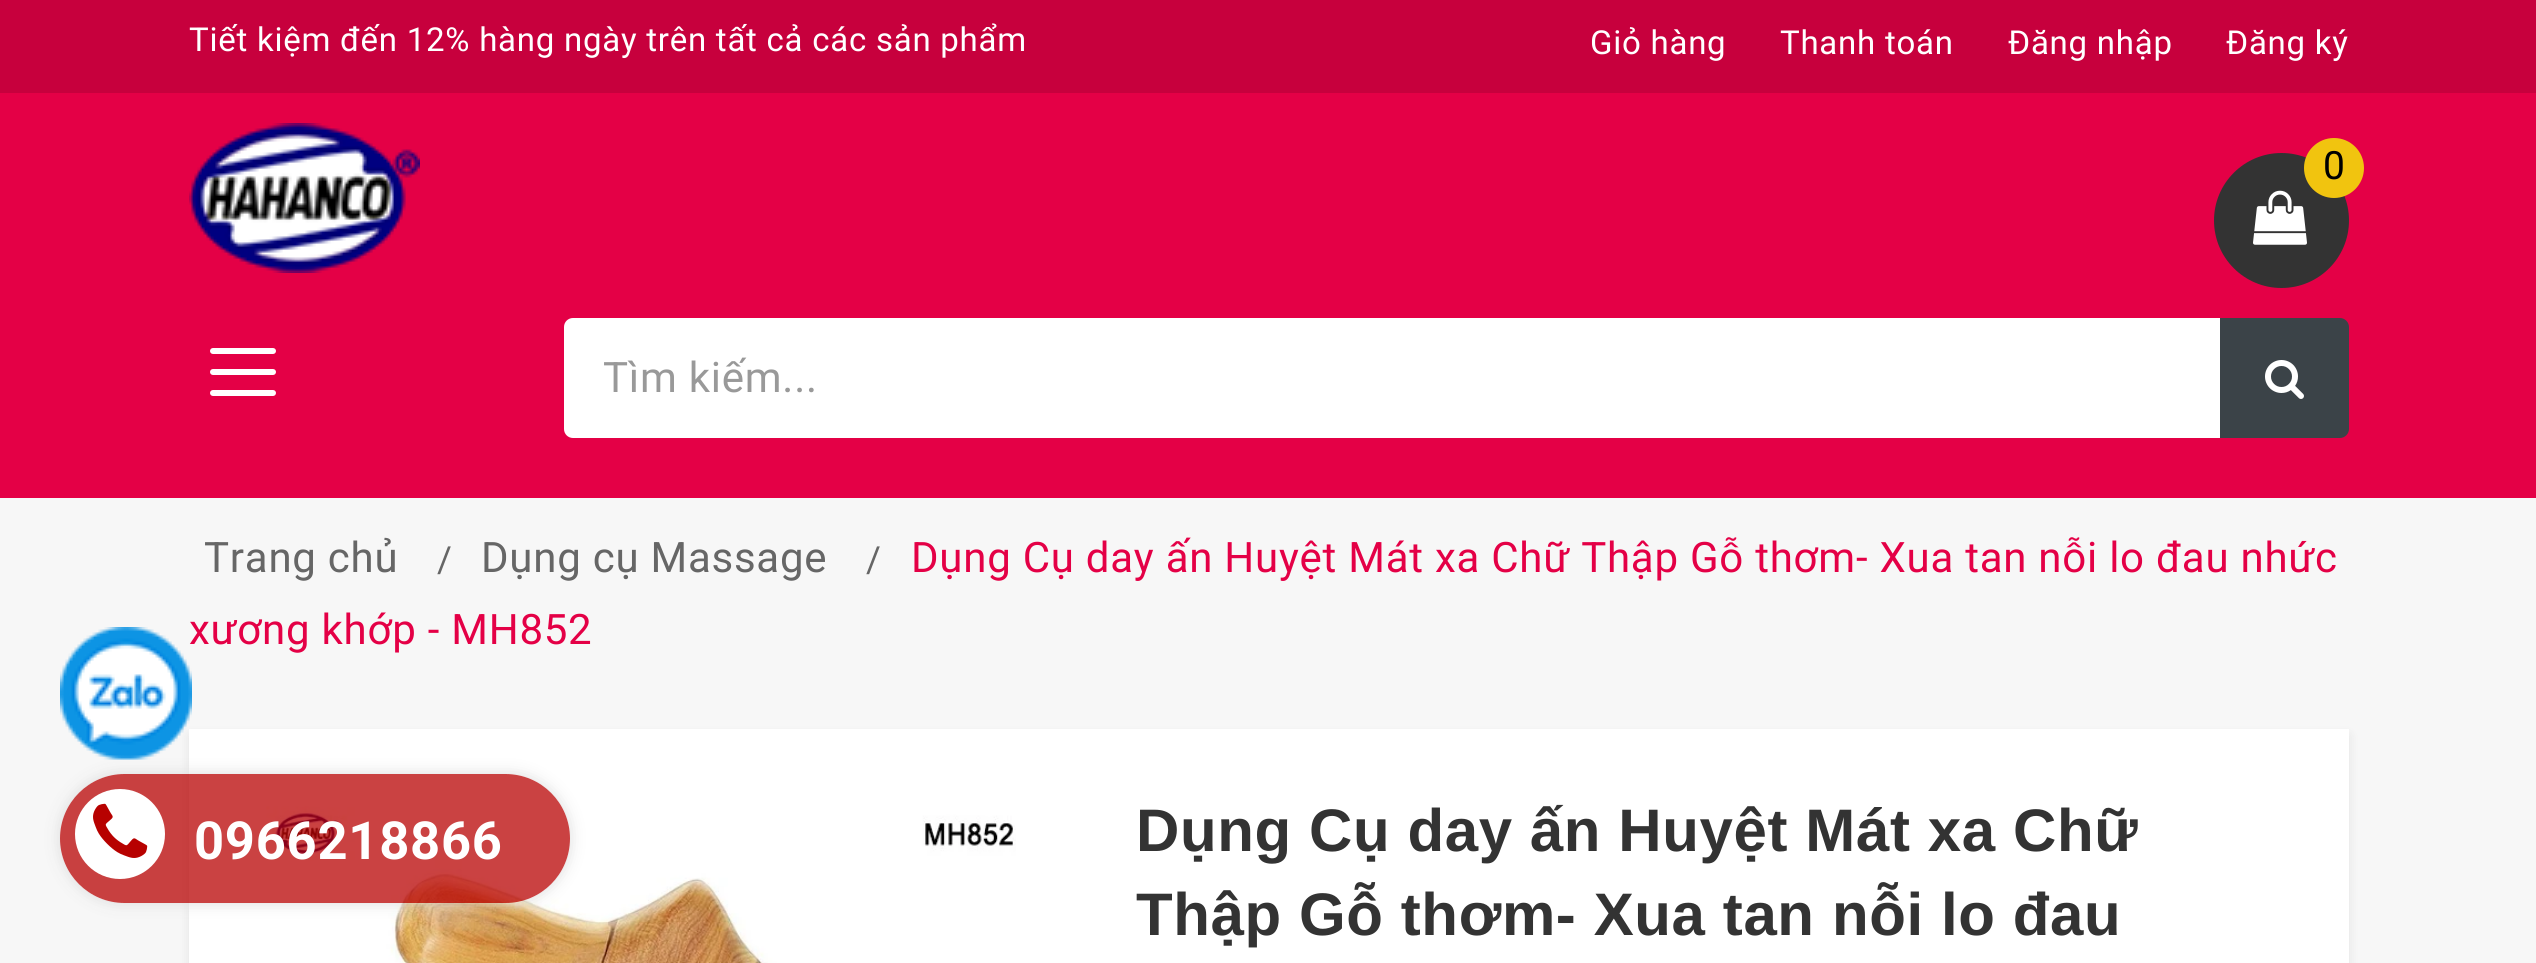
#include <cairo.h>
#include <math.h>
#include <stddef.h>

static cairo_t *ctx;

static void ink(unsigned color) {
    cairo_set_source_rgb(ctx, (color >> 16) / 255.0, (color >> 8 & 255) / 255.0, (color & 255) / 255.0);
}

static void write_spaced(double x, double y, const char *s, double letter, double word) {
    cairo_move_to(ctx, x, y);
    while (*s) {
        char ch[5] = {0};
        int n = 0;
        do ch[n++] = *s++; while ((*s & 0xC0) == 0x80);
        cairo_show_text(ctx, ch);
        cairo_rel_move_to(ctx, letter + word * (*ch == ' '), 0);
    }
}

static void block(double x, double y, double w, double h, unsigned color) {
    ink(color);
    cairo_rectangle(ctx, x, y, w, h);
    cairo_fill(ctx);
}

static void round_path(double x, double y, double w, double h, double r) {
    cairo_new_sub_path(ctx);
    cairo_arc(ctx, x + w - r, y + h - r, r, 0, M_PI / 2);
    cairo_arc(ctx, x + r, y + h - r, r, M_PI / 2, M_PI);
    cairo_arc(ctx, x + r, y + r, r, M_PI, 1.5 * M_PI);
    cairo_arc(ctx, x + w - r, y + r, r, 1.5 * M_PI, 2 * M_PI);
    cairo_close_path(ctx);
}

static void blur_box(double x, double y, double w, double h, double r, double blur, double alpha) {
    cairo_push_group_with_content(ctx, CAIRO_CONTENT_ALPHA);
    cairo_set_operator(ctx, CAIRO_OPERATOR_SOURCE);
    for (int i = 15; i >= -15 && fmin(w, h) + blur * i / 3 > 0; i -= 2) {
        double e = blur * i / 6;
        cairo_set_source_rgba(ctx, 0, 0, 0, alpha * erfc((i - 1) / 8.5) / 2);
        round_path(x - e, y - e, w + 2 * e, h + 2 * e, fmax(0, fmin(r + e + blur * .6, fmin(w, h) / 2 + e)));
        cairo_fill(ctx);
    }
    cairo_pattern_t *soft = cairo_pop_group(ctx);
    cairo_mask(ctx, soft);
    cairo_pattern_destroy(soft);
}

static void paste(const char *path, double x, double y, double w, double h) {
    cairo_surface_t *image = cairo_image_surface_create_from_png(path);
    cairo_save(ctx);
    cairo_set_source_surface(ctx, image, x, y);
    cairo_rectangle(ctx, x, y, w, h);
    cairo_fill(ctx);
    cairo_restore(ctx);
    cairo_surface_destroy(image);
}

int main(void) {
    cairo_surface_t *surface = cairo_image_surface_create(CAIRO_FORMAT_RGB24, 2536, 963);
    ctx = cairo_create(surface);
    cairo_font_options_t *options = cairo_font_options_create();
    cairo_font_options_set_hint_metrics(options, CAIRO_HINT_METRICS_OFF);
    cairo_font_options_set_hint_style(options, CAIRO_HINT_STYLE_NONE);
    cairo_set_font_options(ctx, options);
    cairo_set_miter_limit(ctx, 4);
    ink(0xf7f7f7);
    cairo_paint(ctx);
    block(0, 93, 2536, 405, 0xe40046);
    block(0, 0, 2536, 93, 0xc7003d);
    cairo_select_font_face(ctx, "Roboto", CAIRO_FONT_SLANT_NORMAL, CAIRO_FONT_WEIGHT_NORMAL);
    cairo_set_font_size(ctx, 33);
    ink(0xffffff);
    write_spaced(189, 51, "Tiết kiệm đến 12% hàng ngày trên tất cả các sản phẩm", 0.75, 0);
    write_spaced(1590, 54, "Giỏ hàng", 0.75, 0);
    write_spaced(1780, 54, "Thanh toán", 0.75, 0);
    write_spaced(2008, 54, "Đăng nhập", 0.75, 0);
    write_spaced(2226, 54, "Đăng ký", 0.75, 0);
    paste("pic1.png", 189, 123, 231, 150);
    ink(0x333333);
    cairo_arc(ctx, 2281.5, 220.5, 67.5, 0, 2 * M_PI);
    cairo_fill(ctx);
    paste("pic2.png", 2253, 190, 54, 55);
    ink(0xf1c40f);
    cairo_arc(ctx, 2334, 168, 30, 0, 2 * M_PI);
    cairo_fill(ctx);
    cairo_set_font_size(ctx, 39);
    ink(0x000000);
    write_spaced(2323, 179, "0", 0.75, 0);
    ink(0xffffff);
    round_path(210, 369, 66, 6, 3);
    cairo_fill(ctx);
    round_path(210, 348, 66, 6, 3);
    cairo_fill(ctx);
    round_path(210, 390, 66, 6, 3);
    cairo_fill(ctx);
    cairo_new_path(ctx);
    cairo_move_to(ctx, 573, 318);
    cairo_line_to(ctx, 2223, 318);
    cairo_line_to(ctx, 2223, 438);
    cairo_line_to(ctx, 573, 438);
    cairo_curve_to(ctx, 568, 438, 564, 434, 564, 429);
    cairo_line_to(ctx, 564, 327);
    cairo_curve_to(ctx, 564, 322, 568, 318, 573, 318);
    cairo_close_path(ctx);
    cairo_fill(ctx);
    cairo_set_font_size(ctx, 42);
    ink(0x999999);
    write_spaced(603, 392, "Tìm kiếm...", 0.75, 0);
    ink(0x3b4348);
    cairo_new_path(ctx);
    cairo_move_to(ctx, 2221.5, 319.5);
    cairo_line_to(ctx, 2340, 319.5);
    cairo_curve_to(ctx, 2344, 319.5, 2347.5, 323, 2347.5, 327);
    cairo_line_to(ctx, 2347.5, 429);
    cairo_curve_to(ctx, 2347.5, 433, 2344, 436.5, 2340, 436.5);
    cairo_line_to(ctx, 2221.5, 436.5);
    cairo_close_path(ctx);
    cairo_fill_preserve(ctx);
    cairo_set_line_width(ctx, 3);
    cairo_stroke(ctx);
    paste("pic3.png", 2265, 360, 39, 39);
    ink(0x666666);
    write_spaced(204, 572, "Trang chủ", 0.75, 0);
    cairo_set_font_size(ctx, 36);
    write_spaced(437, 572, "/", 0.75, 0);
    cairo_set_font_size(ctx, 42);
    write_spaced(481, 572, "Dụng cụ Massage", 0.75, 0);
    cairo_set_font_size(ctx, 36);
    write_spaced(866, 572, "/", 0.75, 0);
    cairo_set_font_size(ctx, 42);
    ink(0xe40046);
    write_spaced(911, 572, "Dụng Cụ day ấn Huyệt Mát xa Chữ Thập Gỗ thơm- Xua tan nỗi lo đau nhức", 0.75, 0);
    write_spaced(189, 644, "xương khớp - MH852", 0.75, 0);
    ink(0x000000);
    blur_box(189, 735, 2160, 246, 0, 6, 0.08);
    block(189, 729, 2160, 234, 0xffffff);
    paste("pic4.png", 266, 806, 750, 157);
    cairo_select_font_face(ctx, "Liberation Sans", CAIRO_FONT_SLANT_NORMAL, CAIRO_FONT_WEIGHT_BOLD);
    cairo_set_font_size(ctx, 60);
    ink(0x333333);
    write_spaced(1136, 851, "Dụng Cụ day ấn Huyệt Mát xa Chữ", 0.6, 0);
    write_spaced(1136, 935, "Thập Gỗ thơm- Xua tan nỗi lo đau", 0.6, 0);
    cairo_save(ctx);
    cairo_set_fill_rule(ctx, CAIRO_FILL_RULE_EVEN_ODD);
    cairo_new_path(ctx);
    cairo_move_to(ctx, 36, 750);
    cairo_line_to(ctx, 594, 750);
    cairo_line_to(ctx, 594, 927);
    cairo_line_to(ctx, 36, 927);
    cairo_close_path(ctx);
    cairo_move_to(ctx, 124.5, 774);
    cairo_line_to(ctx, 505.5, 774);
    cairo_curve_to(ctx, 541, 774, 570, 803, 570, 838.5);
    cairo_curve_to(ctx, 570, 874, 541, 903, 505.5, 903);
    cairo_line_to(ctx, 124.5, 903);
    cairo_curve_to(ctx, 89, 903, 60, 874, 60, 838.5);
    cairo_curve_to(ctx, 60, 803, 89, 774, 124.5, 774);
    cairo_close_path(ctx);
    cairo_clip(ctx);
    ink(0xdddddd);
    blur_box(60, 774, 510, 129, 64.5, 7.5, 1);
    cairo_restore(ctx);
    paste("pic5.png", 60, 627, 132, 133);
    cairo_set_source_rgba(ctx, 0.718, 0.004, 0, 0.74);
    round_path(60, 774, 510, 129, 64.5);
    cairo_fill(ctx);
    ink(0xffffff);
    cairo_arc(ctx, 120, 834, 45, 0, 2 * M_PI);
    cairo_fill(ctx);
    paste("pic6.png", 93, 803, 55, 55);
    cairo_select_font_face(ctx, "Roboto", CAIRO_FONT_SLANT_NORMAL, CAIRO_FONT_WEIGHT_BOLD);
    cairo_set_font_size(ctx, 52.5);
    write_spaced(194, 859, "0966218866", 0.75, 0);
    cairo_surface_write_to_png(surface, "screenshot.png");
    cairo_font_options_destroy(options);
    cairo_destroy(ctx);
    cairo_surface_destroy(surface);
    return 0;
}
